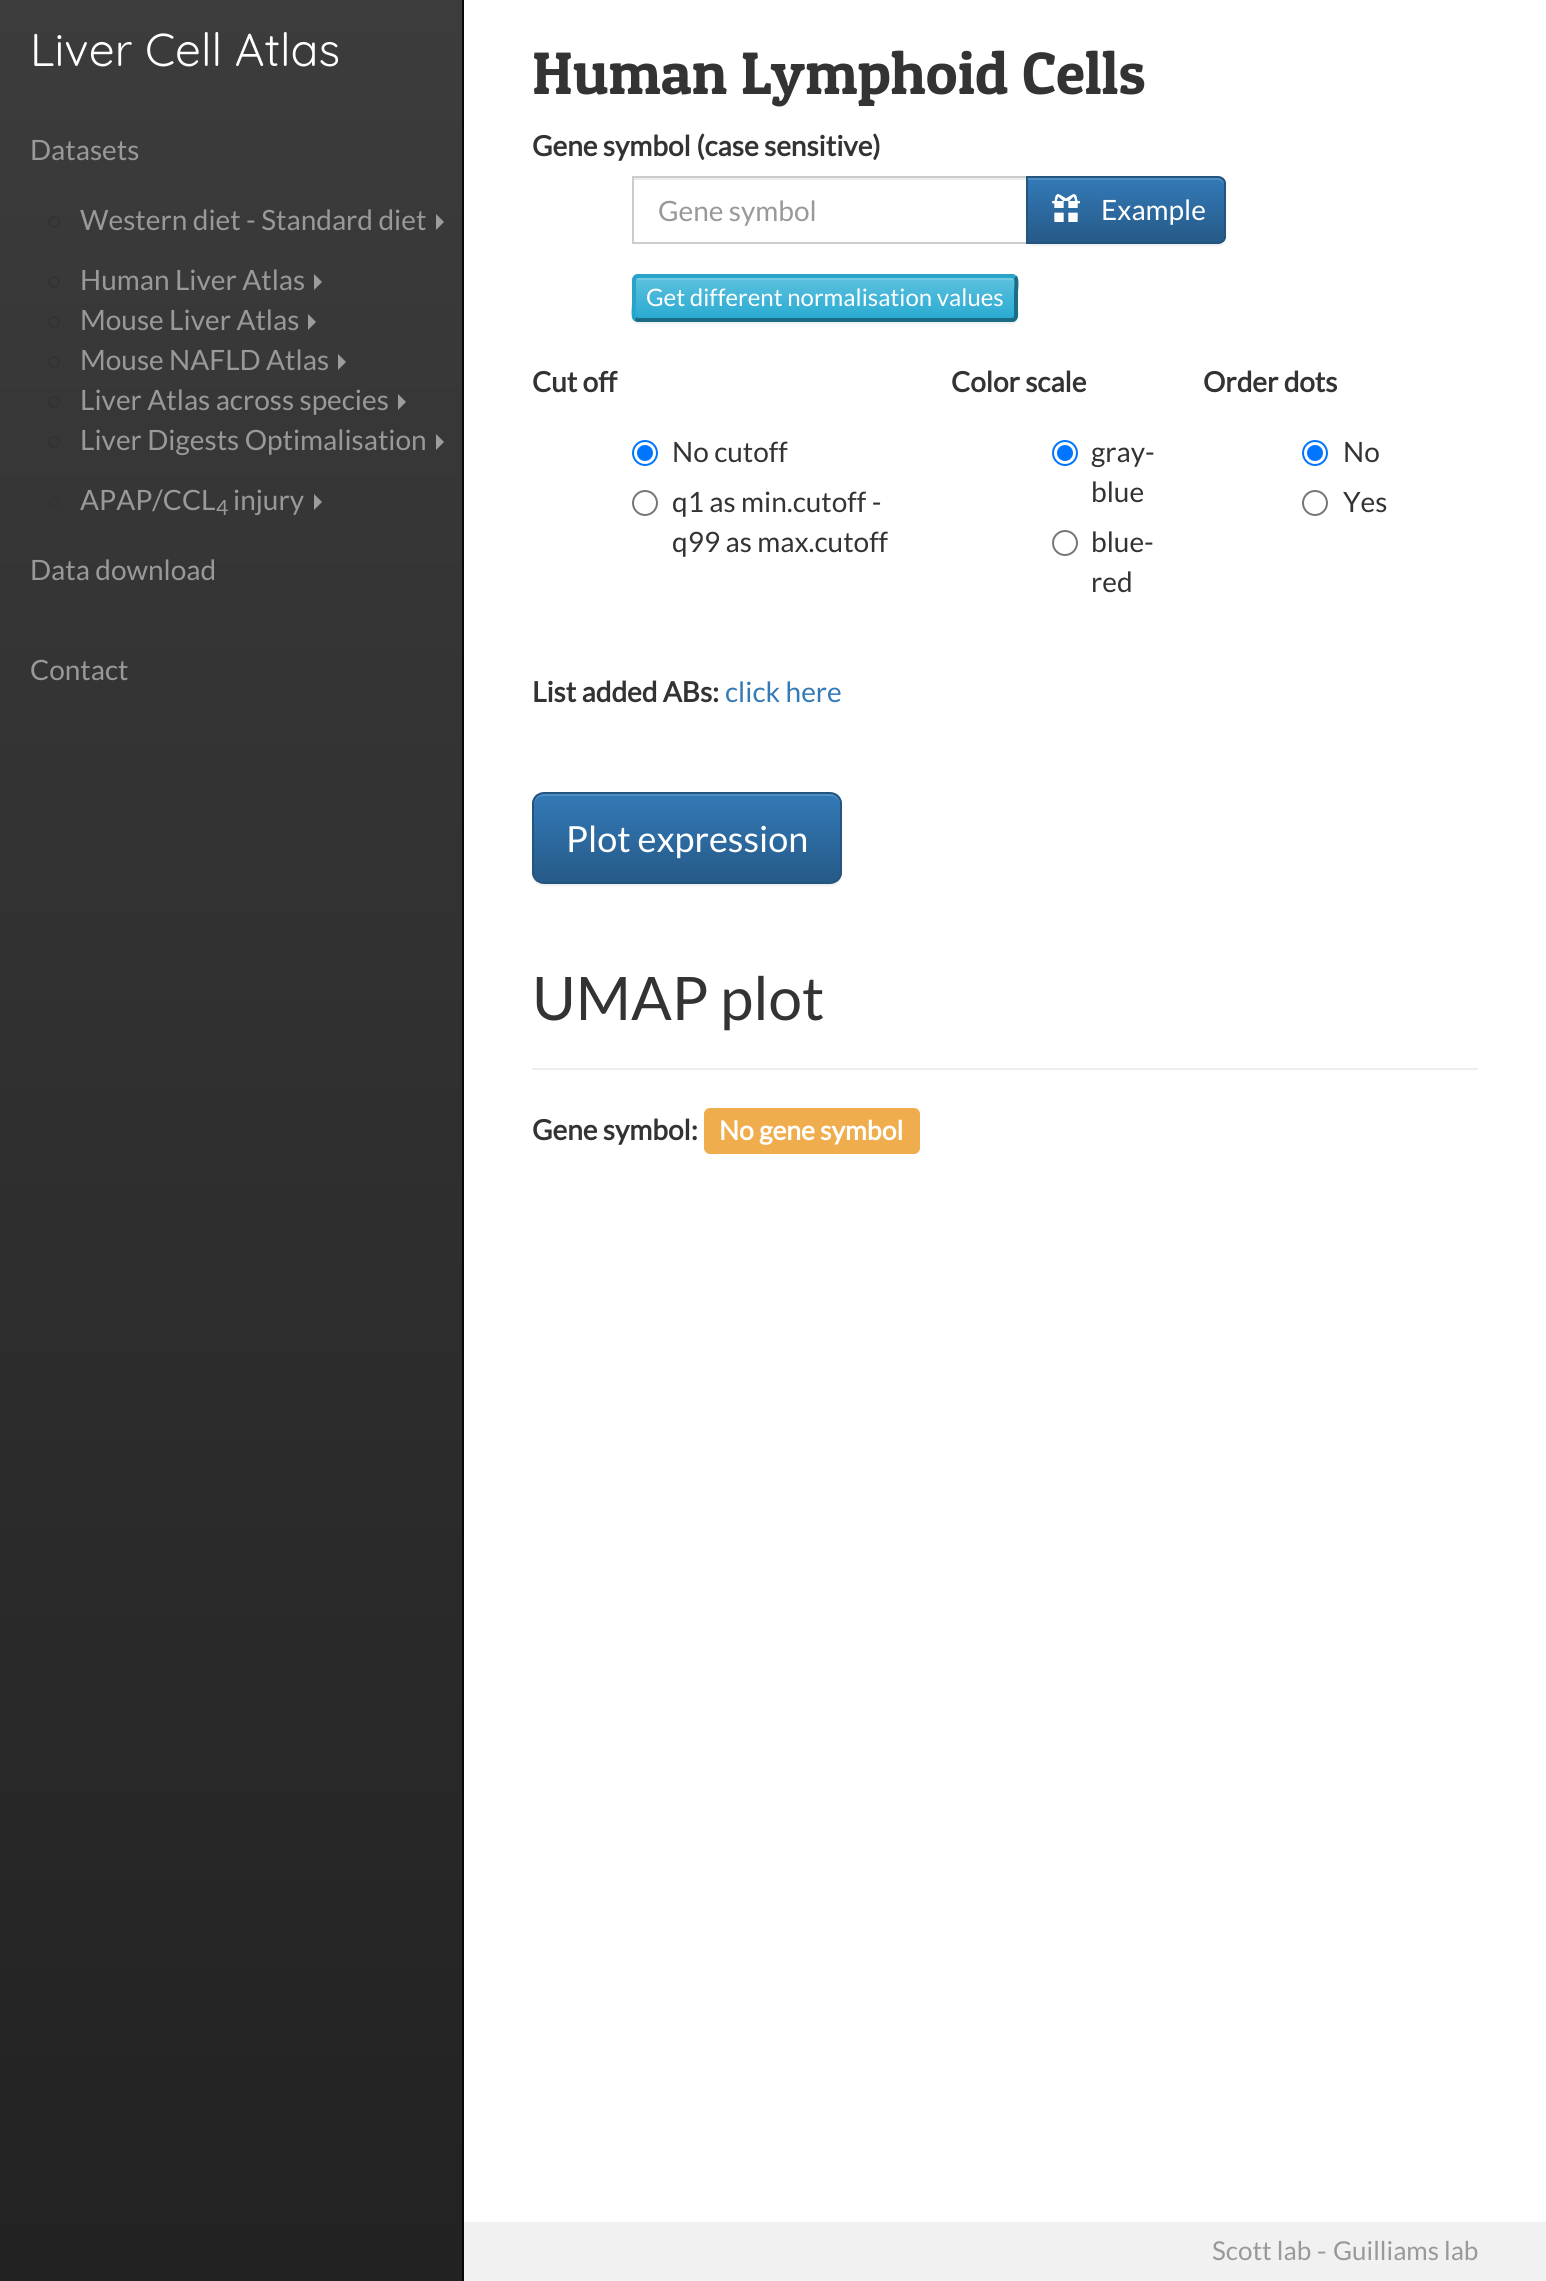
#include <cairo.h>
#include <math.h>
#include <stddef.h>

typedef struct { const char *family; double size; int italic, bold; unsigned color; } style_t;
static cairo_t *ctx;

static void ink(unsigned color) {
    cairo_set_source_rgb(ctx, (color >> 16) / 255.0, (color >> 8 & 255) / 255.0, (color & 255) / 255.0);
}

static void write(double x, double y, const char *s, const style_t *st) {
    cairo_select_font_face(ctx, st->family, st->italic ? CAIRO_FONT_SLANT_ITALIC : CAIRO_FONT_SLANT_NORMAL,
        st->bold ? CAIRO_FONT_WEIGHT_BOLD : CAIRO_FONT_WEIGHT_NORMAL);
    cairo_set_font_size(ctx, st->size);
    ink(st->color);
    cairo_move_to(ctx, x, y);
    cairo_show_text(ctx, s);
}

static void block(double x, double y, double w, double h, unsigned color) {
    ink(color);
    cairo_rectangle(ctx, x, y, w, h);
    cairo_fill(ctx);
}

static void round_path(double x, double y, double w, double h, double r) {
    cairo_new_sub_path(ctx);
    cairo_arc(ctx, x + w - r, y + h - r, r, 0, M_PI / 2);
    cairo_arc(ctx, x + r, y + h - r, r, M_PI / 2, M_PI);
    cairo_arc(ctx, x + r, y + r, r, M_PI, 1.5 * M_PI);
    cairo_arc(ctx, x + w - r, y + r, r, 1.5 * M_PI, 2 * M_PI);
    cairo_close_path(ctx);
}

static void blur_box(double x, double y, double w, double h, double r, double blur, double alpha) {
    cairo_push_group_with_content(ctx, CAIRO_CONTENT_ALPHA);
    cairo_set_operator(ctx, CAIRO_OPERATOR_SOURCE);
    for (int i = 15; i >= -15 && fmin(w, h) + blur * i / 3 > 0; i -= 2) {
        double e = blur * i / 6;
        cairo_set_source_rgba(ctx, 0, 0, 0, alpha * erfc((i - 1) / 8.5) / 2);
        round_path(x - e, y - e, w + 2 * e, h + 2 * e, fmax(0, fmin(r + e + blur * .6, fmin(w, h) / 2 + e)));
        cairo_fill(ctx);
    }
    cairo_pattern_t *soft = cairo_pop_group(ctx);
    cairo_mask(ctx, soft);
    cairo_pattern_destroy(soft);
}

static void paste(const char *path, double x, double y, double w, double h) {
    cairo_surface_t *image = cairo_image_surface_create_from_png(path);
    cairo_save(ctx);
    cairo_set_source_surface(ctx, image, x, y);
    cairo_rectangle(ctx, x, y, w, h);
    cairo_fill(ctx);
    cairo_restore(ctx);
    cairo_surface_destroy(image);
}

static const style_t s1 = {"Quicksand Light", 46, 0, 0, 0xffffff};
static const style_t s2 = {"Lato", 28, 0, 0, 0x9a9898};
static const style_t s3 = {"Lato", 21, 0, 0, 0x9a9898};
static const style_t s4 = {"Patua One", 60, 0, 0, 0x333333};
static const style_t s5 = {"Lato", 28, 0, 1, 0x333333};
static const style_t s6 = {"Lato", 28, 0, 0, 0xffffff};
static const style_t s7 = {"Lato", 24, 0, 0, 0xffffff};
static const style_t s8 = {"Lato", 28, 0, 0, 0x333333};
static const style_t s9 = {"Lato", 28, 0, 0, 0x337ab7};
static const style_t s10 = {"Lato", 36, 0, 0, 0xffffff};
static const style_t s11 = {"Lato", 60, 0, 0, 0x333333};
static const style_t s12 = {"Lato", 26.5, 0, 1, 0xffffff};
static const style_t s13 = {"Lato", 26, 0, 0, 0x9a9898};
static const style_t s14 = {"Play", 26, 0, 0, 0x9a9898};

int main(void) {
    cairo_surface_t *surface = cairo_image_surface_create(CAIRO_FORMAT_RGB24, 1546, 2281);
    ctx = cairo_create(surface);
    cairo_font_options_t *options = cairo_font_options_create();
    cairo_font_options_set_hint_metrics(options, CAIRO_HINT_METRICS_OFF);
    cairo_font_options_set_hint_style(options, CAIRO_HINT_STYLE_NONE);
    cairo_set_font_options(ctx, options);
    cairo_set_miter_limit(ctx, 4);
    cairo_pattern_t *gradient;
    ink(0xffffff);
    cairo_paint(ctx);
    gradient = cairo_pattern_create_linear(231, 0, 231, 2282);
    cairo_pattern_add_color_stop_rgba(gradient, 0, 0.235, 0.235, 0.235, 1);
    cairo_pattern_add_color_stop_rgba(gradient, 1, 0.133, 0.133, 0.133, 1);
    cairo_set_source(ctx, gradient);
    cairo_pattern_destroy(gradient);
    cairo_rectangle(ctx, 0, 0, 462, 2281);
    cairo_fill(ctx);
    block(462, 0, 2, 2281, 0x080808);
    write(30, 66, "Liver Cell Atlas", &s1);
    write(30, 160, "Datasets", &s2);
    cairo_new_path(ctx);
    cairo_arc(ctx, 54, 222, 5, 0, 2 * M_PI);
    ink(0x333333);
    cairo_stroke(ctx);
    write(80, 230, "Western diet - Standard diet", &s2);
    ink(0x9d9d9d);
    cairo_new_path(ctx);
    cairo_move_to(ctx, 436, 230);
    cairo_line_to(ctx, 436, 214);
    cairo_line_to(ctx, 444, 222);
    cairo_close_path(ctx);
    cairo_fill(ctx);
    cairo_arc(ctx, 54, 282, 5, 0, 2 * M_PI);
    ink(0x333333);
    cairo_stroke(ctx);
    write(80, 290, "Human Liver Atlas", &s2);
    ink(0x9d9d9d);
    cairo_new_path(ctx);
    cairo_move_to(ctx, 314, 290);
    cairo_line_to(ctx, 314, 274);
    cairo_line_to(ctx, 322, 282);
    cairo_close_path(ctx);
    cairo_fill(ctx);
    cairo_arc(ctx, 54, 322, 5, 0, 2 * M_PI);
    ink(0x333333);
    cairo_stroke(ctx);
    write(80, 330, "Mouse Liver Atlas", &s2);
    ink(0x9d9d9d);
    cairo_new_path(ctx);
    cairo_move_to(ctx, 308, 330);
    cairo_line_to(ctx, 308, 314);
    cairo_line_to(ctx, 316, 322);
    cairo_close_path(ctx);
    cairo_fill(ctx);
    cairo_arc(ctx, 54, 362, 5, 0, 2 * M_PI);
    ink(0x333333);
    cairo_stroke(ctx);
    write(80, 370, "Mouse NAFLD Atlas", &s2);
    ink(0x9d9d9d);
    cairo_new_path(ctx);
    cairo_move_to(ctx, 338, 370);
    cairo_line_to(ctx, 338, 354);
    cairo_line_to(ctx, 346, 362);
    cairo_close_path(ctx);
    cairo_fill(ctx);
    cairo_arc(ctx, 54, 402, 5, 0, 2 * M_PI);
    ink(0x333333);
    cairo_stroke(ctx);
    write(80, 410, "Liver Atlas across species", &s2);
    ink(0x9d9d9d);
    cairo_new_path(ctx);
    cairo_move_to(ctx, 398, 410);
    cairo_line_to(ctx, 398, 394);
    cairo_line_to(ctx, 406, 402);
    cairo_close_path(ctx);
    cairo_fill(ctx);
    cairo_arc(ctx, 54, 442, 5, 0, 2 * M_PI);
    ink(0x333333);
    cairo_stroke(ctx);
    write(80, 450, "Liver Digests Optimalisation", &s2);
    ink(0x9d9d9d);
    cairo_new_path(ctx);
    cairo_move_to(ctx, 436, 450);
    cairo_line_to(ctx, 436, 434);
    cairo_line_to(ctx, 444, 442);
    cairo_close_path(ctx);
    cairo_fill(ctx);
    cairo_arc(ctx, 54, 502, 5, 0, 2 * M_PI);
    ink(0x333333);
    cairo_stroke(ctx);
    write(80, 510, "APAP/CCL", &s2);
    write(216, 515, "4", &s3);
    write(233, 510, "injury", &s2);
    ink(0x9d9d9d);
    cairo_new_path(ctx);
    cairo_move_to(ctx, 314, 510);
    cairo_line_to(ctx, 314, 494);
    cairo_line_to(ctx, 322, 502);
    cairo_close_path(ctx);
    cairo_fill(ctx);
    write(30, 580, "Data download", &s2);
    write(30, 680, "Contact", &s2);
    write(532, 94, "Human Lymphoid Cells", &s4);
    write(532, 156, "Gene symbol (case sensitive)", &s5);
    block(634, 178, 392, 2, 0xececec);
    cairo_rectangle(ctx, 633, 177, 394, 66);
    ink(0xcccccc);
    cairo_stroke(ctx);
    write(658, 221, "Gene symbol", &s2);
    ink(0x000000);
    blur_box(1026, 178, 200, 68, 8, 1, 0.07);
    cairo_save(ctx);
    cairo_new_path(ctx);
    cairo_move_to(ctx, 1026, 176);
    cairo_line_to(ctx, 1218, 176);
    cairo_curve_to(ctx, 1222.5, 176, 1226, 179.5, 1226, 184);
    cairo_line_to(ctx, 1226, 236);
    cairo_curve_to(ctx, 1226, 240.5, 1222.5, 244, 1218, 244);
    cairo_line_to(ctx, 1026, 244);
    cairo_close_path(ctx);
    cairo_clip(ctx);
    gradient = cairo_pattern_create_linear(1126, 178, 1126, 242);
    cairo_pattern_add_color_stop_rgba(gradient, 0, 0.2, 0.478, 0.718, 1);
    cairo_pattern_add_color_stop_rgba(gradient, 1, 0.149, 0.353, 0.533, 1);
    cairo_set_source(ctx, gradient);
    cairo_pattern_destroy(gradient);
    cairo_rectangle(ctx, 1028, 178, 198, 64);
    cairo_fill(ctx);
    cairo_restore(ctx);
    cairo_set_source_rgba(ctx, 1, 1, 1, 0.15);
    cairo_new_path(ctx);
    cairo_move_to(ctx, 1028, 180);
    cairo_line_to(ctx, 1218, 180);
    cairo_curve_to(ctx, 1221, 180, 1224, 183, 1224, 186);
    cairo_line_to(ctx, 1224, 184);
    cairo_curve_to(ctx, 1224, 181, 1221, 178, 1218, 178);
    cairo_line_to(ctx, 1028, 178);
    cairo_close_path(ctx);
    cairo_fill(ctx);
    cairo_new_path(ctx);
    cairo_move_to(ctx, 1027, 177);
    cairo_line_to(ctx, 1218, 177);
    cairo_curve_to(ctx, 1222, 177, 1225, 180, 1225, 184);
    cairo_line_to(ctx, 1225, 236);
    cairo_curve_to(ctx, 1225, 240, 1222, 243, 1218, 243);
    cairo_line_to(ctx, 1027, 243);
    cairo_close_path(ctx);
    ink(0x245580);
    cairo_stroke(ctx);
    paste("pic1.png", 1052, 194, 28, 28);
    write(1101, 220, "Example", &s6);
    ink(0x000000);
    blur_box(632, 276, 386, 48, 6, 1, 0.07);
    ink(0x5bc0de);
    round_path(632, 274, 386, 48, 6);
    cairo_fill(ctx);
    cairo_save(ctx);
    round_path(632, 274, 386, 48, 6);
    cairo_clip(ctx);
    gradient = cairo_pattern_create_linear(825, 278, 825, 318);
    cairo_pattern_add_color_stop_rgba(gradient, 0, 0.357, 0.753, 0.871, 1);
    cairo_pattern_add_color_stop_rgba(gradient, 1, 0.165, 0.671, 0.824, 1);
    cairo_set_source(ctx, gradient);
    cairo_pattern_destroy(gradient);
    cairo_rectangle(ctx, 632, 278, 386, 40);
    cairo_fill(ctx);
    cairo_restore(ctx);
    ink(0x72c9e3);
    cairo_new_path(ctx);
    cairo_move_to(ctx, 638, 280);
    cairo_line_to(ctx, 1012, 280);
    cairo_curve_to(ctx, 1013, 280, 1014, 281, 1014, 282);
    cairo_line_to(ctx, 1014, 280);
    cairo_curve_to(ctx, 1014, 279, 1013, 278, 1012, 278);
    cairo_line_to(ctx, 638, 278);
    cairo_curve_to(ctx, 637, 278, 636, 279, 636, 280);
    cairo_line_to(ctx, 636, 282);
    cairo_curve_to(ctx, 636, 281, 637, 280, 638, 280);
    cairo_close_path(ctx);
    cairo_fill(ctx);
    cairo_new_path(ctx);
    cairo_move_to(ctx, 1015, 277);
    cairo_curve_to(ctx, 1017.5, 279.5, 1016, 289, 1016, 292);
    cairo_line_to(ctx, 1016, 310);
    cairo_curve_to(ctx, 1016, 313, 1017, 320, 1012, 320);
    cairo_line_to(ctx, 638, 320);
    cairo_line_to(ctx, 635, 319);
    ink(0x1b6d86);
    cairo_set_line_width(ctx, 4);
    cairo_stroke(ctx);
    cairo_new_path(ctx);
    cairo_move_to(ctx, 635, 319);
    cairo_curve_to(ctx, 632.5, 316.5, 634, 307, 634, 304);
    cairo_line_to(ctx, 634, 286);
    cairo_curve_to(ctx, 634, 283, 633, 276, 638, 276);
    cairo_line_to(ctx, 1012, 276);
    cairo_line_to(ctx, 1015, 277);
    ink(0x28a4c9);
    cairo_stroke(ctx);
    write(646, 306, "Get different normalisation values", &s7);
    write(532, 392, "Cut off", &s5);
    cairo_new_path(ctx);
    cairo_arc(ctx, 645, 453, 12, 0, 2 * M_PI);
    ink(0x0075ff);
    cairo_set_line_width(ctx, 2);
    cairo_stroke(ctx);
    cairo_arc(ctx, 645, 453, 8, 0, 2 * M_PI);
    cairo_fill(ctx);
    write(672, 462, "No cutoff", &s8);
    cairo_new_path(ctx);
    cairo_arc(ctx, 645, 503, 12, 0, 2 * M_PI);
    ink(0x767676);
    cairo_stroke(ctx);
    write(672, 512, "q1 as min.cutoff -", &s8);
    write(672, 552, "q99 as max.cutoff", &s8);
    write(951, 392, "Color scale", &s5);
    cairo_new_path(ctx);
    cairo_arc(ctx, 1065, 453, 12, 0, 2 * M_PI);
    ink(0x0075ff);
    cairo_stroke(ctx);
    cairo_arc(ctx, 1065, 453, 8, 0, 2 * M_PI);
    cairo_fill(ctx);
    write(1091, 462, "gray-", &s8);
    write(1091, 502, "blue", &s8);
    cairo_new_path(ctx);
    cairo_arc(ctx, 1065, 543, 12, 0, 2 * M_PI);
    ink(0x767676);
    cairo_stroke(ctx);
    write(1091, 552, "blue-", &s8);
    write(1091, 592, "red", &s8);
    write(1203, 392, "Order dots", &s5);
    cairo_new_path(ctx);
    cairo_arc(ctx, 1315, 453, 12, 0, 2 * M_PI);
    ink(0x0075ff);
    cairo_stroke(ctx);
    cairo_arc(ctx, 1315, 453, 8, 0, 2 * M_PI);
    cairo_fill(ctx);
    write(1343, 462, "No", &s8);
    cairo_new_path(ctx);
    cairo_arc(ctx, 1315, 503, 12, 0, 2 * M_PI);
    ink(0x767676);
    cairo_stroke(ctx);
    write(1343, 512, "Yes", &s8);
    write(532, 702, "List added ABs:", &s5);
    write(725, 702, "click here", &s9);
    ink(0x000000);
    blur_box(532, 794, 310, 92, 12, 1, 0.07);
    cairo_save(ctx);
    round_path(532, 792, 310, 92, 12);
    cairo_clip(ctx);
    gradient = cairo_pattern_create_linear(687, 794, 687, 882);
    cairo_pattern_add_color_stop_rgba(gradient, 0, 0.2, 0.478, 0.718, 1);
    cairo_pattern_add_color_stop_rgba(gradient, 1, 0.149, 0.353, 0.533, 1);
    cairo_set_source(ctx, gradient);
    cairo_pattern_destroy(gradient);
    cairo_rectangle(ctx, 532, 794, 310, 88);
    cairo_fill(ctx);
    cairo_restore(ctx);
    cairo_set_source_rgba(ctx, 1, 1, 1, 0.15);
    cairo_new_path(ctx);
    cairo_move_to(ctx, 544, 796);
    cairo_line_to(ctx, 830, 796);
    cairo_curve_to(ctx, 836, 796, 840, 800, 840, 806);
    cairo_line_to(ctx, 840, 804);
    cairo_curve_to(ctx, 840, 798, 836, 794, 830, 794);
    cairo_line_to(ctx, 544, 794);
    cairo_curve_to(ctx, 538, 794, 534, 798, 534, 804);
    cairo_line_to(ctx, 534, 806);
    cairo_curve_to(ctx, 534, 800, 538, 796, 544, 796);
    cairo_close_path(ctx);
    cairo_fill(ctx);
    round_path(533, 793, 308, 90, 11);
    ink(0x245580);
    cairo_stroke(ctx);
    write(566, 852, "Plot expression", &s10);
    block(532, 1068, 946, 2, 0xeeeeee);
    write(532, 1020, "UMAP plot", &s11);
    write(532, 1140, "Gene symbol:", &s5);
    ink(0xf0ad4e);
    round_path(704, 1108, 216, 46, 6);
    cairo_fill(ctx);
    write(719, 1140, "No gene symbol", &s12);
    block(464, 2222, 1082, 59, 0xf1f1f1);
    write(1212, 2260, "Scott lab", &s13);
    write(1317, 2260, "-", &s14);
    write(1333, 2260, "Guilliams lab", &s13);
    cairo_surface_write_to_png(surface, "screenshot.png");
    cairo_font_options_destroy(options);
    cairo_destroy(ctx);
    cairo_surface_destroy(surface);
    return 0;
}
